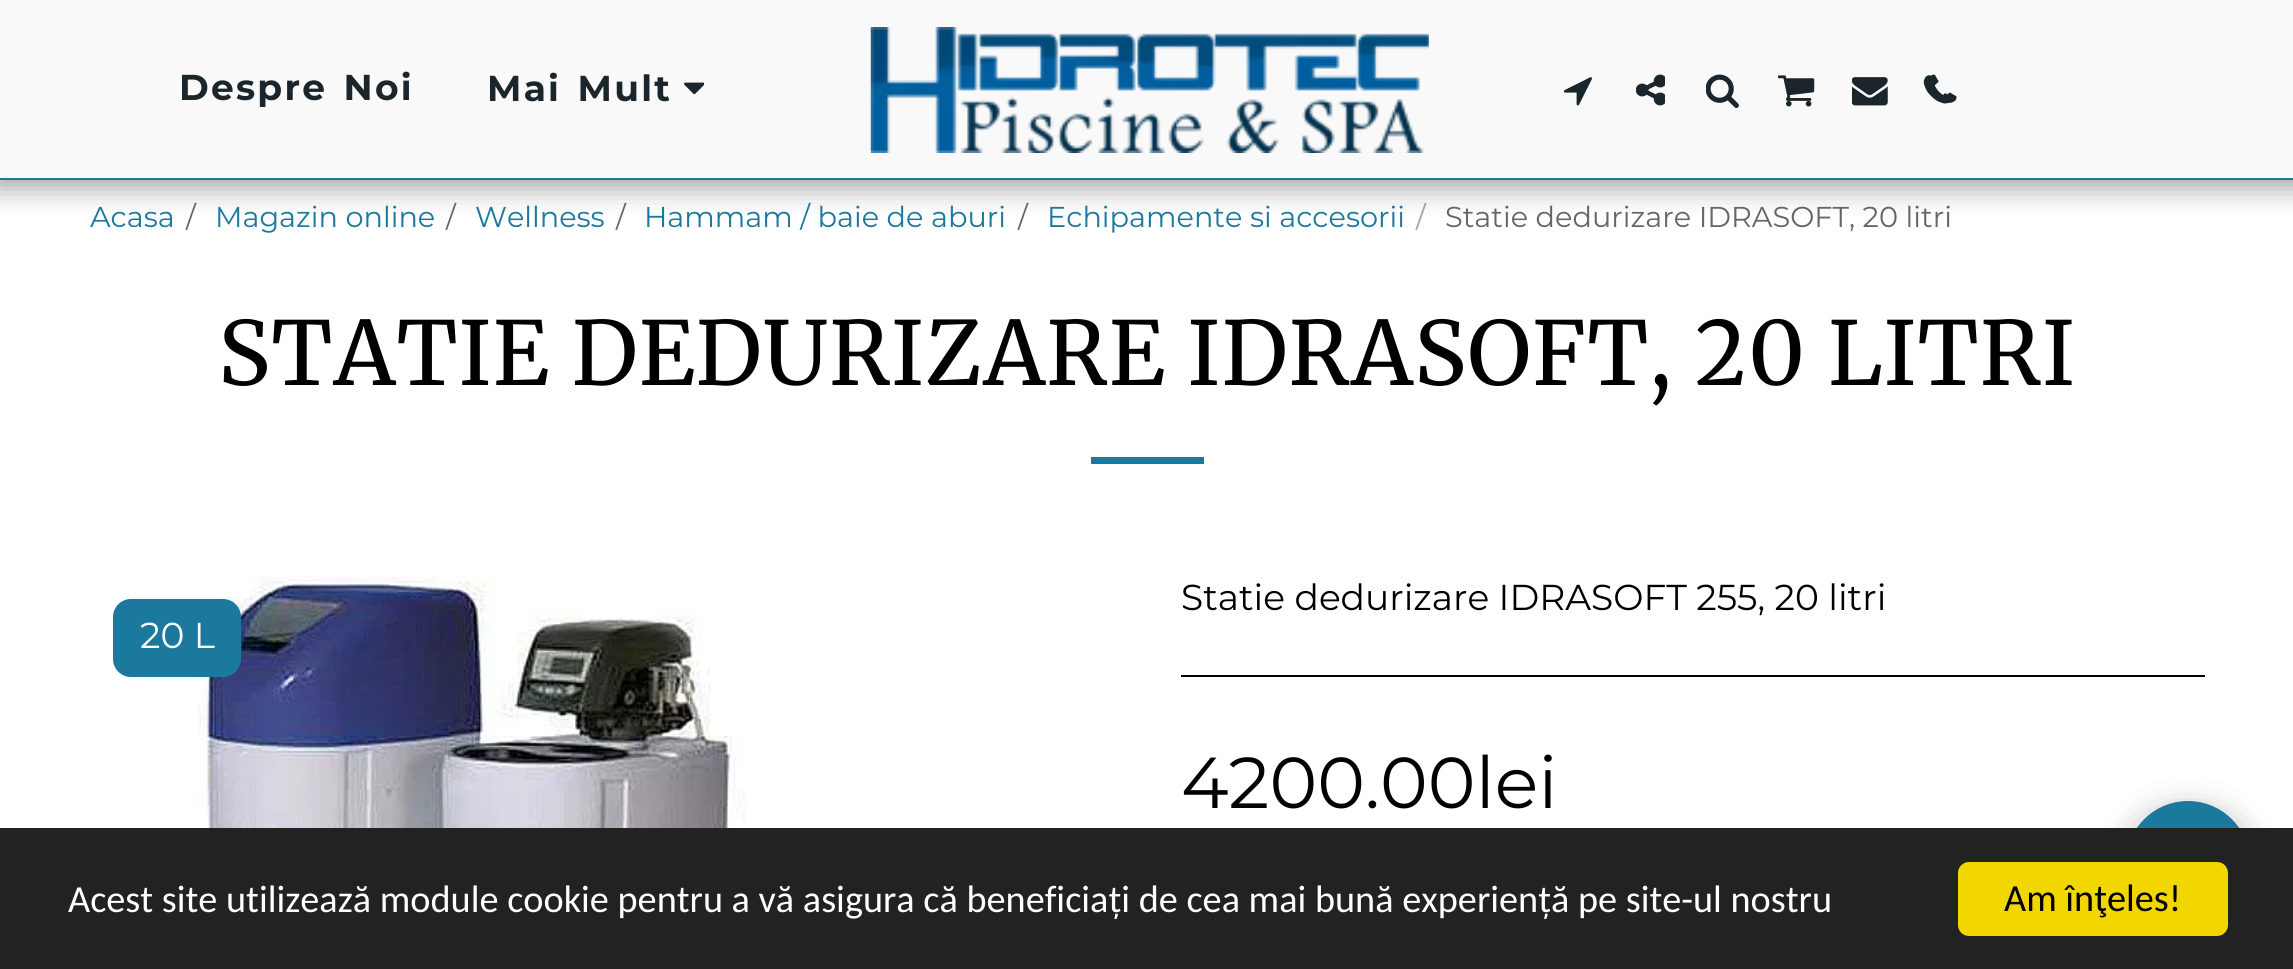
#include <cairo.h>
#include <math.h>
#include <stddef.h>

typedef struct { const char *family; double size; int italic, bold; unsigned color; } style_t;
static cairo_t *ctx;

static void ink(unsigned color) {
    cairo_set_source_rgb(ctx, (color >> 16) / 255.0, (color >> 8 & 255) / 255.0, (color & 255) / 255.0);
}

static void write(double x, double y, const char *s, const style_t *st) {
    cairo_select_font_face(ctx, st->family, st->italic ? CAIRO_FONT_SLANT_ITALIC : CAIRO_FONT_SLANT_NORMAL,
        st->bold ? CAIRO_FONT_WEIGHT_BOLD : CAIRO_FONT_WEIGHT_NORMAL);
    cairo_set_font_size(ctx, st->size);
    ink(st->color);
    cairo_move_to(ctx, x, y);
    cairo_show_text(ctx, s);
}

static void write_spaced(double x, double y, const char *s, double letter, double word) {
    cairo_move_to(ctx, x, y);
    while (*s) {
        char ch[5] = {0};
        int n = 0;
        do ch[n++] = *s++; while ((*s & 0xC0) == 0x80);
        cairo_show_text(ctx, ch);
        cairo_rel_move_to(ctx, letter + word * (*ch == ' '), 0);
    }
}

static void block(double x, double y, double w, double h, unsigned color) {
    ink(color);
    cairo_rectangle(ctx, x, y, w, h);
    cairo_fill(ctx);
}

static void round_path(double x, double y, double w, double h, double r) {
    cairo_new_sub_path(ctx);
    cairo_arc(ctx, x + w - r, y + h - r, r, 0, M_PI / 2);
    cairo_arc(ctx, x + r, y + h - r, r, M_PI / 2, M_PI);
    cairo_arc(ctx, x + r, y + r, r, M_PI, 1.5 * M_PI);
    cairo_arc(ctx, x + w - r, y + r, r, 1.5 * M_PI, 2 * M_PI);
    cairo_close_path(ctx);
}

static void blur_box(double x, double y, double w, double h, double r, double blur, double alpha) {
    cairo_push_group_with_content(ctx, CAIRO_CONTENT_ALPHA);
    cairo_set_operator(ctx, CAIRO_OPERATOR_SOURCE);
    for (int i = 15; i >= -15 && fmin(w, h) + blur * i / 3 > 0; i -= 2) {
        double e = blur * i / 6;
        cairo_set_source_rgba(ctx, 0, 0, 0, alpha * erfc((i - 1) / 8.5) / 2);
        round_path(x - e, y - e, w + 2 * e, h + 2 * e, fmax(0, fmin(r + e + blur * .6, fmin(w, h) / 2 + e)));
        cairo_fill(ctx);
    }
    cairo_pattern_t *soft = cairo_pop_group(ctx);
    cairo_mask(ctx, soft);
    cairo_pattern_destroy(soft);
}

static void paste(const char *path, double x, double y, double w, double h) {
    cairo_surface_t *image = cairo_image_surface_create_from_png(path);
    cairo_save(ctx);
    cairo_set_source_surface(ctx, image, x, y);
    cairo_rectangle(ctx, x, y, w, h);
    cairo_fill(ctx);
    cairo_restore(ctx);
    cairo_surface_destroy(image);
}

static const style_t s1 = {"Montserrat", 28.75, 0, 0, 0x1c799e};
static const style_t s2 = {"Montserrat", 28.75, 0, 0, 0x666666};
static const style_t s3 = {"Montserrat", 28.75, 0, 0, 0xa3a3a3};
static const style_t s4 = {"Montserrat", 36, 0, 0, 0xffffff};
static const style_t s5 = {"Montserrat", 36, 0, 0, 0x000000};
static const style_t s6 = {"Montserrat", 72, 0, 0, 0x000000};
static const style_t s7 = {"Carlito", 38.25, 0, 0, 0xffffff};
static const style_t s8 = {"Carlito", 38.25, 0, 0, 0x000000};

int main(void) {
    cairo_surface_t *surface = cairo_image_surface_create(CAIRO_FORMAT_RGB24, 2293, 969);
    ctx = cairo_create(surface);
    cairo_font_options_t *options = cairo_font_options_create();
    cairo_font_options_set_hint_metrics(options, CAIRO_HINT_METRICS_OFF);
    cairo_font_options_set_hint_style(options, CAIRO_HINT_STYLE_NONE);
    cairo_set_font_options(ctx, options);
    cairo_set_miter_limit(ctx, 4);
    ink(0xffffff);
    cairo_paint(ctx);
    ink(0x000000);
    blur_box(-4, 0, 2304, 189, 0, 13.5, 0.35);
    block(0, 0, 2293, 178, 0xf9f9f9);
    block(0, 178, 2293, 2, 0x1c799e);
    cairo_select_font_face(ctx, "Montserrat", CAIRO_FONT_SLANT_NORMAL, CAIRO_FONT_WEIGHT_BOLD);
    cairo_set_font_size(ctx, 36);
    ink(0x1b262c);
    write_spaced(179, 100, "Despre Noi", 2.25, 4);
    write_spaced(487, 101, "Mai Mult", 2.25, 4);
    paste("pic1.png", 684, 82, 20, 13);
    paste("pic2.png", 870, 27, 559, 126);
    paste("pic3.png", 1564, 77, 28, 29);
    paste("pic4.png", 1636, 74, 29, 32);
    paste("pic5.png", 1706, 74, 33, 34);
    paste("pic6.png", 1778, 75, 37, 32);
    paste("pic7.png", 1852, 77, 36, 29);
    paste("pic8.png", 1930, 74, 27, 29);
    paste("pic9.png", 1923, 75, 27, 29);
    write(90, 227, "Acasa", &s1);
    write(186, 227, "/", &s2);
    write(215, 227, "Magazin online", &s1);
    write(446, 227, "/", &s2);
    write(475, 227, "Wellness", &s1);
    write(616, 227, "/", &s2);
    write(644, 227, "Hammam / baie de aburi", &s1);
    write(1018, 227, "/", &s2);
    write(1047, 227, "Echipamente si accesorii", &s1);
    write(1416, 227, "/", &s3);
    write(1445, 227, "Statie dedurizare IDRASOFT, 20 litri", &s2);
    cairo_select_font_face(ctx, "Merriweather", CAIRO_FONT_SLANT_NORMAL, CAIRO_FONT_WEIGHT_NORMAL);
    cairo_set_font_size(ctx, 87.9);
    ink(0x000000);
    write_spaced(218, 385, "STATIE DEDURIZARE IDRASOFT, 20 LITRI", 1.1, 0);
    block(1091, 457, 113, 7, 0x1c799e);
    paste("pic10.png", 197, 576, 549, 252);
    round_path(113, 599, 128, 78, 18);
    cairo_fill(ctx);
    write(140, 648, "20 L", &s4);
    write(1181, 610, "Statie dedurizare IDRASOFT 255, 20 litri", &s5);
    block(1181, 675, 1024, 2, 0x000000);
    write(1181, 808, "4200.00lei", &s6);
    ink(0x000000);
    blur_box(2126, 812, 124, 124, 62, 17, 0.35);
    ink(0x1c799e);
    cairo_arc(ctx, 2188, 863, 61, 0, 2 * M_PI);
    cairo_fill_preserve(ctx);
    cairo_stroke(ctx);
    block(0, 828, 2293, 141, 0x222222);
    write(68, 912, "Acest site utilizează module cookie pentru a vă asigura că beneficiați de cea mai bună experiență pe site-ul nostru", &s7);
    ink(0xf1d600);
    round_path(1958, 862, 270, 74, 11);
    cairo_fill(ctx);
    write(2004, 911, "Am înţeles!", &s8);
    cairo_surface_write_to_png(surface, "screenshot.png");
    cairo_font_options_destroy(options);
    cairo_destroy(ctx);
    cairo_surface_destroy(surface);
    return 0;
}
